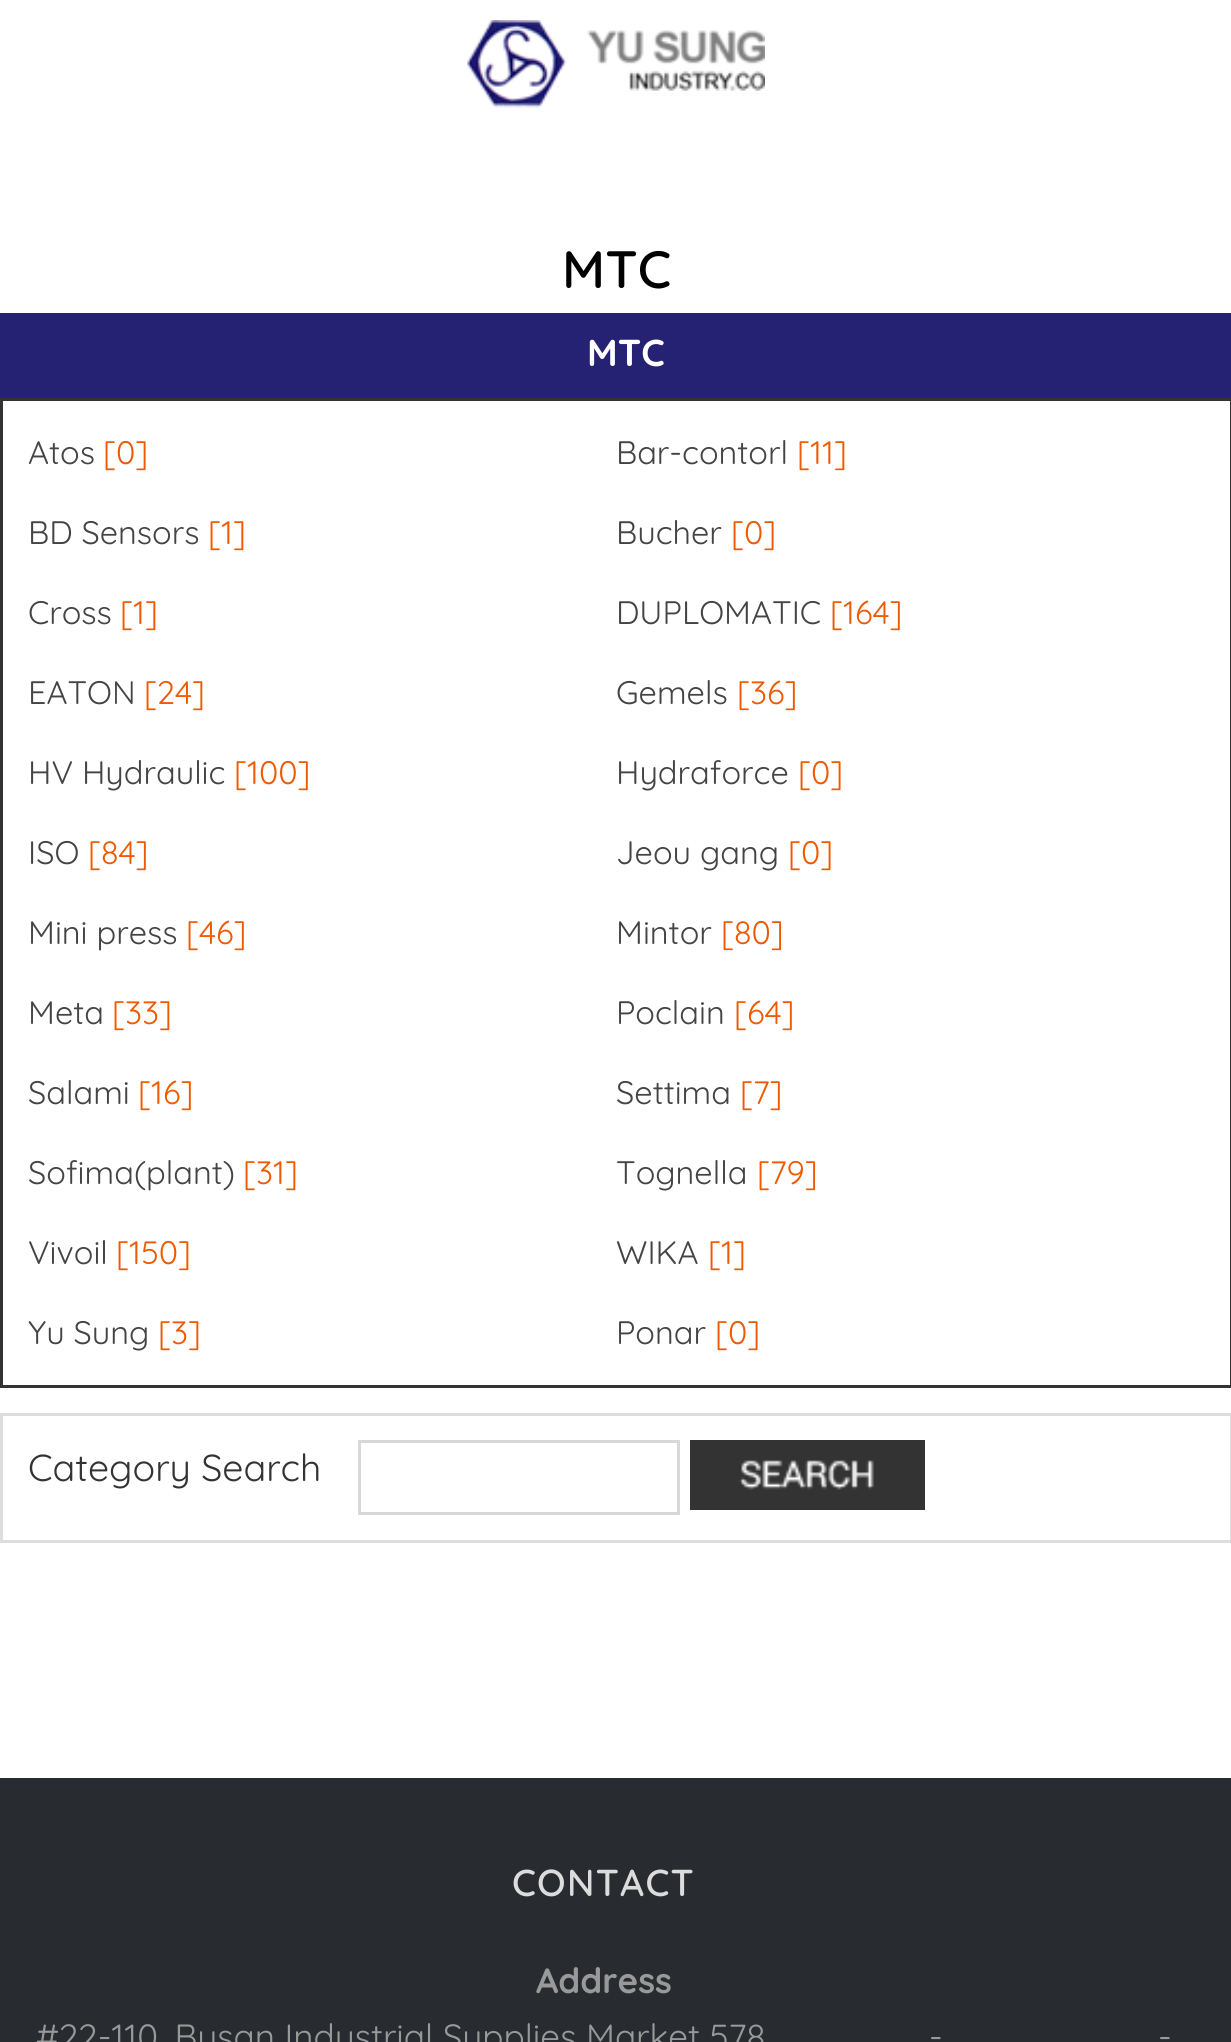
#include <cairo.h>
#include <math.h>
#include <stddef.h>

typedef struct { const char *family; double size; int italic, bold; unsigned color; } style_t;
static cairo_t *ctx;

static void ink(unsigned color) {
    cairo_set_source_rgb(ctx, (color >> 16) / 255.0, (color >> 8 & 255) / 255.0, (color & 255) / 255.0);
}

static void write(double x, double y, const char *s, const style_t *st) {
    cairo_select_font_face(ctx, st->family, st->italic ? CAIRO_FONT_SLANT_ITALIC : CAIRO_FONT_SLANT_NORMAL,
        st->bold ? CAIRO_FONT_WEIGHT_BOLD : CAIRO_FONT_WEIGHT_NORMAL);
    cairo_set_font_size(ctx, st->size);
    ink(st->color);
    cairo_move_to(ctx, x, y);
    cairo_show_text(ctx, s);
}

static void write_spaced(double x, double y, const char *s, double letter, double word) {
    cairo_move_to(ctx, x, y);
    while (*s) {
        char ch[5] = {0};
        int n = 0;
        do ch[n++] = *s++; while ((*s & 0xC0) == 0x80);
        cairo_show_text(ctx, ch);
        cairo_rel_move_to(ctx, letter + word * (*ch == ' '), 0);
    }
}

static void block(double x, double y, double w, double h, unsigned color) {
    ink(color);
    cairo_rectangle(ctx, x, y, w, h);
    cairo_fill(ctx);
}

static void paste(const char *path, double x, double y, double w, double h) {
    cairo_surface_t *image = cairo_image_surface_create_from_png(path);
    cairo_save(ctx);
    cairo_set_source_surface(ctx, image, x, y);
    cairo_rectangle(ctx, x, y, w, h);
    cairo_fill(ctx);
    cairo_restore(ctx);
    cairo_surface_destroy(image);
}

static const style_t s1 = {"Quicksand SemiBold", 52.5, 0, 0, 0x000000};
static const style_t s2 = {"Quicksand", 37.5, 0, 1, 0xffffff};
static const style_t s3 = {"Quicksand", 32.5, 0, 0, 0x444444};
static const style_t s4 = {"Quicksand", 32.5, 0, 0, 0xef5900};
static const style_t s5 = {"Quicksand", 37.5, 0, 0, 0x333333};
static const style_t s6 = {"Quicksand", 35, 0, 1, 0x999999};
static const style_t s7 = {"Quicksand", 35, 0, 0, 0x999999};

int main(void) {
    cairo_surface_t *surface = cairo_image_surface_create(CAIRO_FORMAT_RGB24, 1231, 2042);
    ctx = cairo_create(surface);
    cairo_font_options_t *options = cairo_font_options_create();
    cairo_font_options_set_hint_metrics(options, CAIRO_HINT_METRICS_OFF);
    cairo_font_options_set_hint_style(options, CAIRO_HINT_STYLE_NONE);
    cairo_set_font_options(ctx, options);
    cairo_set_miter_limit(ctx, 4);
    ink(0xffffff);
    cairo_paint(ctx);
    paste("pic1.png", 467, 20, 298, 88);
    write(562, 288, "MTC", &s1);
    block(0, 313, 1231, 85, 0x252173);
    write(587, 366, "MTC", &s2);
    block(0, 398, 1231, 3, 0x333333);
    block(1230, 398, 1, 990, 0x333333);
    block(0, 1385, 1231, 3, 0x333333);
    block(0, 398, 3, 990, 0x333333);
    write(28, 464, "Atos", &s3);
    write(103, 464, "[0]", &s4);
    write(616, 464, "Bar-contorl", &s3);
    write(797, 464, "[11]", &s4);
    write(28, 544, "BD Sensors", &s3);
    write(208, 544, "[1]", &s4);
    write(616, 544, "Bucher", &s3);
    write(731, 544, "[0]", &s4);
    write(28, 624, "Cross", &s3);
    write(120, 624, "[1]", &s4);
    write(616, 624, "DUPLOMATIC", &s3);
    write(830, 624, "[164]", &s4);
    write(28, 704, "EATON", &s3);
    write(144, 704, "[24]", &s4);
    write(616, 704, "Gemels", &s3);
    write(737, 704, "[36]", &s4);
    write(28, 784, "HV Hydraulic", &s3);
    write(234, 784, "[100]", &s4);
    write(616, 784, "Hydraforce", &s3);
    write(798, 784, "[0]", &s4);
    write(28, 864, "ISO", &s3);
    write(88, 864, "[84]", &s4);
    write(616, 864, "Jeou gang", &s3);
    write(788, 864, "[0]", &s4);
    write(28, 944, "Mini press", &s3);
    write(186, 944, "[46]", &s4);
    write(616, 944, "Mintor", &s3);
    write(721, 944, "[80]", &s4);
    write(28, 1024, "Meta", &s3);
    write(112, 1024, "[33]", &s4);
    write(616, 1024, "Poclain", &s3);
    write(734, 1024, "[64]", &s4);
    write(28, 1104, "Salami", &s3);
    write(138, 1104, "[16]", &s4);
    write(616, 1104, "Settima", &s3);
    write(740, 1104, "[7]", &s4);
    write(28, 1184, "Sofima(plant)", &s3);
    write(243, 1184, "[31]", &s4);
    write(616, 1184, "Tognella", &s3);
    write(757, 1184, "[79]", &s4);
    write(28, 1264, "Vivoil", &s3);
    write(116, 1264, "[150]", &s4);
    write(616, 1264, "WIKA", &s3);
    write(708, 1264, "[1]", &s4);
    write(28, 1344, "Yu Sung", &s3);
    write(158, 1344, "[3]", &s4);
    write(616, 1344, "Ponar", &s3);
    write(715, 1344, "[0]", &s4);
    cairo_rectangle(ctx, 1.5, 1414.5, 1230, 127);
    ink(0xdddddd);
    cairo_set_line_width(ctx, 3);
    cairo_stroke(ctx);
    write(28, 1481, "Category Search", &s5);
    cairo_rectangle(ctx, 359.5, 1441.5, 319, 72);
    ink(0xd8d8d8);
    cairo_stroke(ctx);
    paste("pic2.png", 690, 1440, 235, 70);
    block(0, 1778, 1231, 264, 0x282c30);
    cairo_select_font_face(ctx, "Quicksand SemiBold", CAIRO_FONT_SLANT_NORMAL, CAIRO_FONT_WEIGHT_NORMAL);
    ink(0xdcdcdc);
    write_spaced(512, 1896, "CONTACT", 1.25, 0);
    write(536, 1993, "Address", &s6);
    write(36, 2049, "#22-110, Busan Industrial Supplies Market 578", &s7);
    write(929, 2049, "-", &s7);
    write(1158, 2049, "-", &s7);
    cairo_surface_write_to_png(surface, "screenshot.png");
    cairo_font_options_destroy(options);
    cairo_destroy(ctx);
    cairo_surface_destroy(surface);
    return 0;
}
